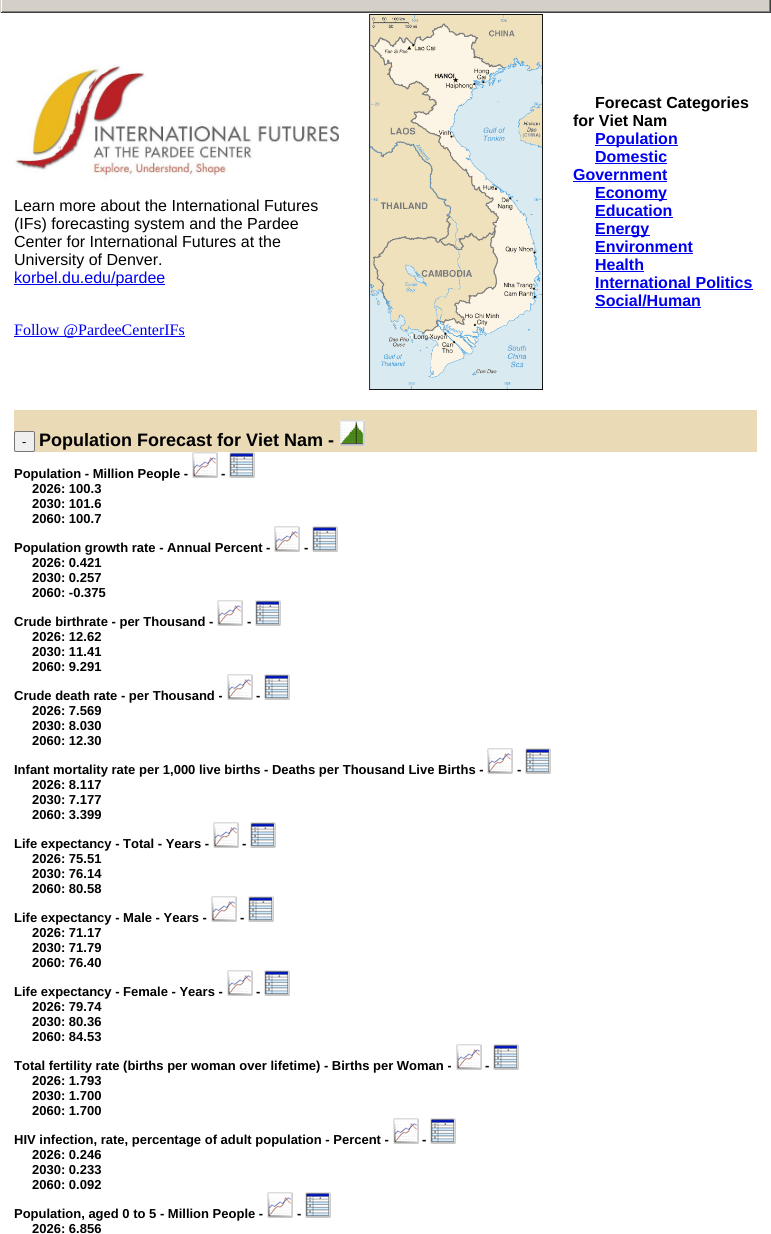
#include <cairo.h>
#include <math.h>
#include <stddef.h>

typedef struct { const char *family; double size; int italic, bold; unsigned color; } style_t;
static cairo_t *ctx;

static void ink(unsigned color) {
    cairo_set_source_rgb(ctx, (color >> 16) / 255.0, (color >> 8 & 255) / 255.0, (color & 255) / 255.0);
}

static void write(double x, double y, const char *s, const style_t *st) {
    cairo_select_font_face(ctx, st->family, st->italic ? CAIRO_FONT_SLANT_ITALIC : CAIRO_FONT_SLANT_NORMAL,
        st->bold ? CAIRO_FONT_WEIGHT_BOLD : CAIRO_FONT_WEIGHT_NORMAL);
    cairo_set_font_size(ctx, st->size);
    ink(st->color);
    cairo_move_to(ctx, x, y);
    cairo_show_text(ctx, s);
}

static void block(double x, double y, double w, double h, unsigned color) {
    ink(color);
    cairo_rectangle(ctx, x, y, w, h);
    cairo_fill(ctx);
}

static void round_path(double x, double y, double w, double h, double r) {
    cairo_new_sub_path(ctx);
    cairo_arc(ctx, x + w - r, y + h - r, r, 0, M_PI / 2);
    cairo_arc(ctx, x + r, y + h - r, r, M_PI / 2, M_PI);
    cairo_arc(ctx, x + r, y + r, r, M_PI, 1.5 * M_PI);
    cairo_arc(ctx, x + w - r, y + r, r, 1.5 * M_PI, 2 * M_PI);
    cairo_close_path(ctx);
}

static void paste(const char *path, double x, double y, double w, double h) {
    cairo_surface_t *image = cairo_image_surface_create_from_png(path);
    cairo_save(ctx);
    cairo_set_source_surface(ctx, image, x, y);
    cairo_rectangle(ctx, x, y, w, h);
    cairo_fill(ctx);
    cairo_restore(ctx);
    cairo_surface_destroy(image);
}

static const style_t s1 = {"Liberation Sans", 16, 0, 0, 0x000000};
static const style_t s2 = {"Liberation Sans", 16, 0, 0, 0x0000ee};
static const style_t s3 = {"Liberation Serif", 16, 0, 0, 0x0000ee};
static const style_t s4 = {"Liberation Sans", 16, 0, 1, 0x000000};
static const style_t s5 = {"Liberation Sans", 16, 0, 1, 0x0000ee};
static const style_t s6 = {"Liberation Sans", 13, 0, 0, 0x000000};
static const style_t s7 = {"Liberation Sans", 18, 0, 1, 0x000000};
static const style_t s8 = {"Liberation Sans", 13, 0, 1, 0x000000};

int main(void) {
    cairo_surface_t *surface = cairo_image_surface_create(CAIRO_FORMAT_RGB24, 771, 1234);
    ctx = cairo_create(surface);
    cairo_font_options_t *options = cairo_font_options_create();
    cairo_font_options_set_hint_metrics(options, CAIRO_HINT_METRICS_OFF);
    cairo_font_options_set_hint_style(options, CAIRO_HINT_STYLE_NONE);
    cairo_set_font_options(ctx, options);
    cairo_set_miter_limit(ctx, 4);
    ink(0xffffff);
    cairo_paint(ctx);
    block(2, 0, 767, 11, 0xd4d0c8);
    block(770, 0, 1, 13, 0x404040);
    block(0, 12, 771, 1, 0x404040);
    block(0, 0, 1, 13, 0xd4d0c8);
    block(769, 0, 1, 12, 0x808080);
    block(1, 11, 769, 1, 0x808080);
    block(1, 11, 1, 1, 0xffffff);
    paste("pic1.png", 14, 65, 325, 114);
    write(14, 211, "Learn more about the International Futures", &s1);
    write(14, 229, "(IFs) forecasting system and the Pardee", &s1);
    write(14, 247, "Center for International Futures at the", &s1);
    write(14, 265, "University of Denver.", &s1);
    block(14, 284, 151, 1, 0x0000ee);
    write(14, 283, "korbel.du.edu/pardee", &s2);
    block(14, 336, 171, 1, 0x0000ee);
    write(14, 335, "Follow @PardeeCenterIFs", &s3);
    paste("pic2.png", 369, 14, 174, 376);
    write(595, 108, "Forecast Categories", &s4);
    write(573, 126, "for Viet Nam", &s4);
    block(595, 145, 83, 1, 0x0000ee);
    write(595, 144, "Population", &s5);
    write(595, 162, "Domestic", &s5);
    block(595, 163, 72, 1, 0x0000ee);
    write(573, 180, "Government", &s5);
    block(573, 181, 94, 1, 0x0000ee);
    block(595, 199, 72, 1, 0x0000ee);
    write(595, 198, "Economy", &s5);
    write(595, 216, "Education", &s5);
    block(595, 217, 78, 1, 0x0000ee);
    block(595, 235, 55, 1, 0x0000ee);
    write(595, 234, "Energy", &s5);
    write(595, 252, "Environment", &s5);
    block(595, 253, 98, 1, 0x0000ee);
    write(595, 270, "Health", &s5);
    block(595, 271, 49, 1, 0x0000ee);
    write(595, 288, "International Politics", &s5);
    block(595, 289, 158, 1, 0x0000ee);
    write(595, 306, "Social/Human", &s5);
    block(595, 307, 106, 1, 0x0000ee);
    block(14, 410, 743, 42, 0xebdab6);
    ink(0xefefef);
    round_path(14.5, 431.5, 20, 20, 1.5);
    cairo_fill_preserve(ctx);
    ink(0x767676);
    cairo_set_line_width(ctx, 1);
    cairo_stroke(ctx);
    write(22, 446, "-", &s6);
    write(39, 446, "Population Forecast for Viet Nam -", &s7);
    paste("pic3.png", 339, 420, 26, 26);
    write(14, 478, "Population - Million People -", &s8);
    paste("pic4.png", 192, 452, 26, 26);
    write(221, 478, "-", &s8);
    paste("pic5.png", 229, 452, 26, 26);
    write(32, 493, "2026: 100.3", &s8);
    write(32, 508, "2030: 101.6", &s8);
    write(32, 523, "2060: 100.7", &s8);
    write(14, 552, "Population growth rate - Annual Percent -", &s8);
    paste("pic4.png", 274, 526, 26, 26);
    write(304, 552, "-", &s8);
    paste("pic5.png", 312, 526, 26, 26);
    write(32, 567, "2026: 0.421", &s8);
    write(32, 582, "2030: 0.257", &s8);
    write(32, 597, "2060: -0.375", &s8);
    write(14, 626, "Crude birthrate - per Thousand -", &s8);
    paste("pic4.png", 217, 600, 26, 26);
    write(247, 626, "-", &s8);
    paste("pic5.png", 255, 600, 26, 26);
    write(32, 641, "2026: 12.62", &s8);
    write(32, 656, "2030: 11.41", &s8);
    write(32, 671, "2060: 9.291", &s8);
    write(14, 700, "Crude death rate - per Thousand -", &s8);
    paste("pic4.png", 227, 674, 26, 26);
    write(256, 700, "-", &s8);
    paste("pic5.png", 264, 674, 26, 26);
    write(32, 715, "2026: 7.569", &s8);
    write(32, 730, "2030: 8.030", &s8);
    write(32, 745, "2060: 12.30", &s8);
    write(14, 774, "Infant mortality rate per 1,000 live births - Deaths per Thousand Live Births -", &s8);
    paste("pic4.png", 487, 748, 26, 26);
    write(517, 774, "-", &s8);
    paste("pic5.png", 525, 748, 26, 26);
    write(32, 789, "2026: 8.117", &s8);
    write(32, 804, "2030: 7.177", &s8);
    write(32, 819, "2060: 3.399", &s8);
    write(14, 848, "Life expectancy - Total - Years -", &s8);
    paste("pic4.png", 213, 822, 26, 26);
    write(242, 848, "-", &s8);
    paste("pic5.png", 250, 822, 26, 26);
    write(32, 863, "2026: 75.51", &s8);
    write(32, 878, "2030: 76.14", &s8);
    write(32, 893, "2060: 80.58", &s8);
    write(14, 922, "Life expectancy - Male - Years -", &s8);
    paste("pic4.png", 211, 896, 26, 26);
    write(240, 922, "-", &s8);
    paste("pic5.png", 248, 896, 26, 26);
    write(32, 937, "2026: 71.17", &s8);
    write(32, 952, "2030: 71.79", &s8);
    write(32, 967, "2060: 76.40", &s8);
    write(14, 996, "Life expectancy - Female - Years -", &s8);
    paste("pic4.png", 227, 970, 26, 26);
    write(256, 996, "-", &s8);
    paste("pic5.png", 264, 970, 26, 26);
    write(32, 1011, "2026: 79.74", &s8);
    write(32, 1026, "2030: 80.36", &s8);
    write(32, 1041, "2060: 84.53", &s8);
    write(14, 1070, "Total fertility rate (births per woman over lifetime) - Births per Woman -", &s8);
    paste("pic4.png", 456, 1044, 26, 26);
    write(485, 1070, "-", &s8);
    paste("pic5.png", 493, 1044, 26, 26);
    write(32, 1085, "2026: 1.793", &s8);
    write(32, 1100, "2030: 1.700", &s8);
    write(32, 1115, "2060: 1.700", &s8);
    write(14, 1144, "HIV infection, rate, percentage of adult population - Percent -", &s8);
    paste("pic4.png", 393, 1118, 26, 26);
    write(422, 1144, "-", &s8);
    paste("pic5.png", 430, 1118, 26, 26);
    write(32, 1159, "2026: 0.246", &s8);
    write(32, 1174, "2030: 0.233", &s8);
    write(32, 1189, "2060: 0.092", &s8);
    write(14, 1218, "Population, aged 0 to 5 - Million People -", &s8);
    paste("pic4.png", 267, 1192, 26, 26);
    write(297, 1218, "-", &s8);
    paste("pic5.png", 305, 1192, 26, 26);
    write(32, 1233, "2026: 6.856", &s8);
    cairo_surface_write_to_png(surface, "screenshot.png");
    cairo_font_options_destroy(options);
    cairo_destroy(ctx);
    cairo_surface_destroy(surface);
    return 0;
}
